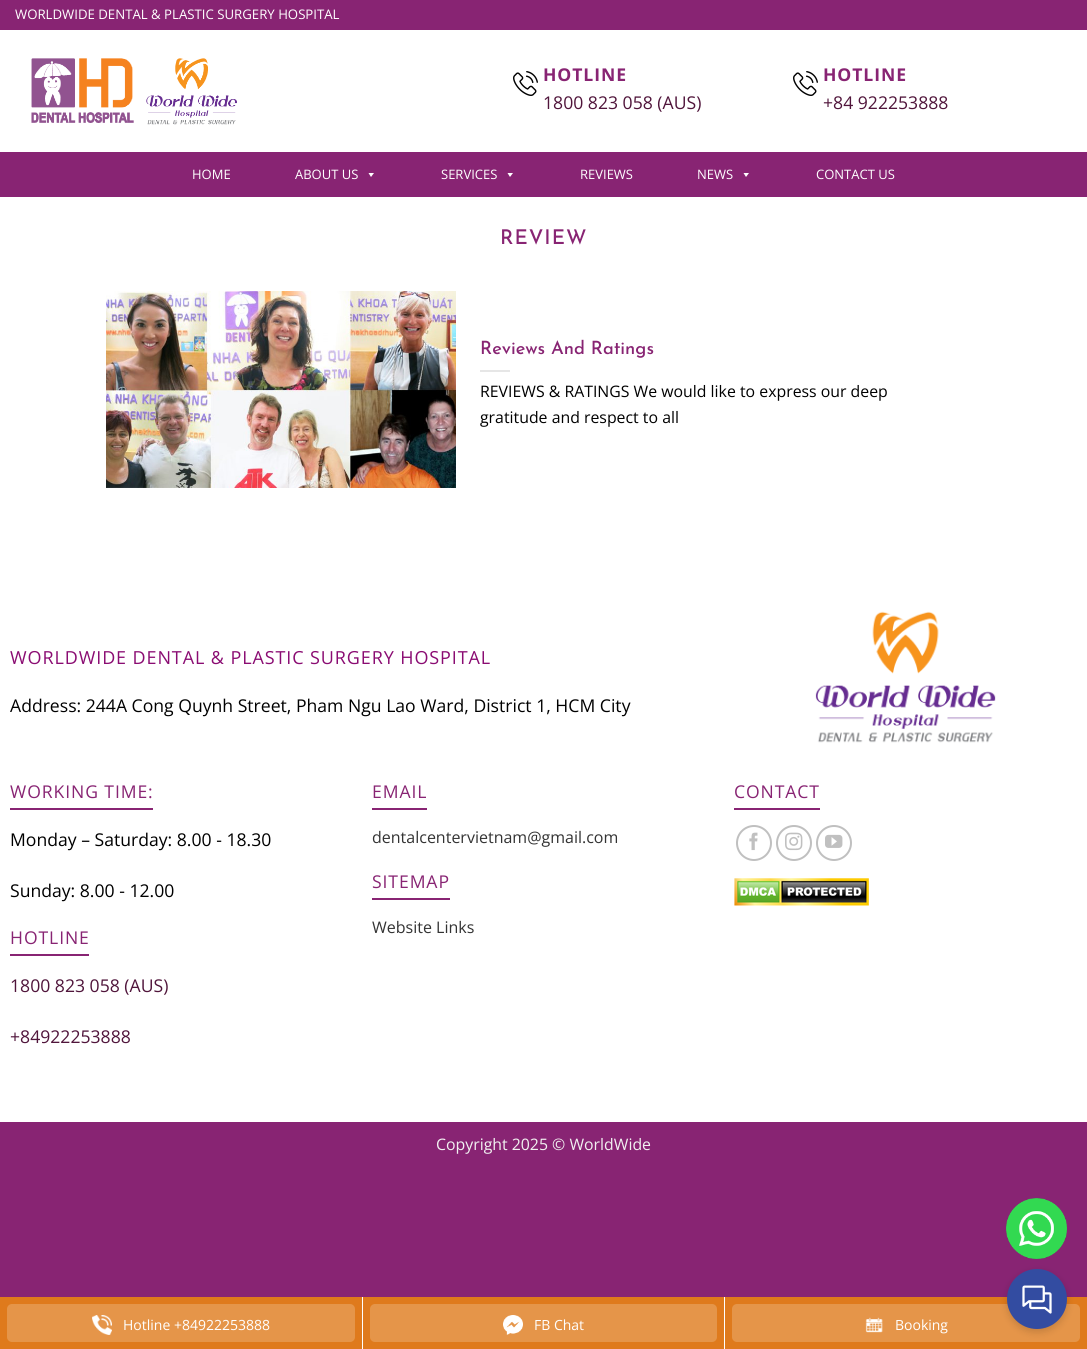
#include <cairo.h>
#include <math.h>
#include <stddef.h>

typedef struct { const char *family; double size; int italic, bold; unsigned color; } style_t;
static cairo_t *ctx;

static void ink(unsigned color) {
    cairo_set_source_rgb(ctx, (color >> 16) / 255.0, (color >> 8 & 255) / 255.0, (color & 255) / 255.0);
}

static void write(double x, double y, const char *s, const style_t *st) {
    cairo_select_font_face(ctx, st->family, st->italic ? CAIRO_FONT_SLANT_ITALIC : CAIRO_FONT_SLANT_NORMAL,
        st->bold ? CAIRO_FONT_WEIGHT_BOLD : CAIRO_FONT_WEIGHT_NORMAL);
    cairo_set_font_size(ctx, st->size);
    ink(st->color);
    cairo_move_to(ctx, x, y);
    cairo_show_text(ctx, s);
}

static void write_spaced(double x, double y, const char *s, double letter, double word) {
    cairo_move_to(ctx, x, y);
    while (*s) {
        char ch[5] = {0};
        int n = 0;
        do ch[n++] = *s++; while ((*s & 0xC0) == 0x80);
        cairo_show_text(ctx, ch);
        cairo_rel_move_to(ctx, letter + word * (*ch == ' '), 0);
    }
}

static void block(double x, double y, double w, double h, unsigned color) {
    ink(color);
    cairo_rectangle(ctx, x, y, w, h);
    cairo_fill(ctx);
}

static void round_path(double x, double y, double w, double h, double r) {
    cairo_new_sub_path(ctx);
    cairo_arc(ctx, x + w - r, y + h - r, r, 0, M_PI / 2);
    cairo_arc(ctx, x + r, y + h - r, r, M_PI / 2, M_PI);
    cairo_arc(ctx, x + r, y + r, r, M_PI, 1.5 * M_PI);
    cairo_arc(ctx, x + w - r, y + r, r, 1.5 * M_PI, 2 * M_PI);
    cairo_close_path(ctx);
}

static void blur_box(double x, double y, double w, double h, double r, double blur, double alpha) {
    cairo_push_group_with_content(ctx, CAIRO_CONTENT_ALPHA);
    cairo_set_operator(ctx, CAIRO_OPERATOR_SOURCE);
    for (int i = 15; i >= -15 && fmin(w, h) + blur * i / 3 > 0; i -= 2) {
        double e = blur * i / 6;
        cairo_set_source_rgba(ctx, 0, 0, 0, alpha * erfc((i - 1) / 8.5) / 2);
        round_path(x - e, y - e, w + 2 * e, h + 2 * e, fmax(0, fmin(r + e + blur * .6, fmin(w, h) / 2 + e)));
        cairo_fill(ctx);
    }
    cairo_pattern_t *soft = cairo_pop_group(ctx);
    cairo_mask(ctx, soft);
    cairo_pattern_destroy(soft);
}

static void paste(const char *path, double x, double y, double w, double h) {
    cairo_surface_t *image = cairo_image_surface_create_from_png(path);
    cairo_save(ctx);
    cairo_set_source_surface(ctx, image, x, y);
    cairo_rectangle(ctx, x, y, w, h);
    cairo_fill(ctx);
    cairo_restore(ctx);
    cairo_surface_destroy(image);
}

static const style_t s1 = {"Open Sans", 13.2, 0, 0, 0xffffff};
static const style_t s2 = {"Open Sans", 17.6, 0, 0, 0x50153b};
static const style_t s3 = {"Open Sans", 13, 0, 0, 0xffffff};
static const style_t s4 = {"Josefin Sans Medium", 18.25, 0, 0, 0x882473};
static const style_t s5 = {"Open Sans", 15.85, 0, 0, 0x000000};
static const style_t s6 = {"Open Sans", 17.6, 0, 0, 0x000000};
static const style_t s7 = {"Open Sans", 16, 0, 0, 0x333333};
static const style_t s8 = {"Open Sans", 15.85, 0, 0, 0xf1f1f1};
static const style_t s9 = {"Open Sans", 14, 0, 0, 0xffffff};

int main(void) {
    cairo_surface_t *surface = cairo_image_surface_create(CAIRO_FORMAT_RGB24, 1087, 1349);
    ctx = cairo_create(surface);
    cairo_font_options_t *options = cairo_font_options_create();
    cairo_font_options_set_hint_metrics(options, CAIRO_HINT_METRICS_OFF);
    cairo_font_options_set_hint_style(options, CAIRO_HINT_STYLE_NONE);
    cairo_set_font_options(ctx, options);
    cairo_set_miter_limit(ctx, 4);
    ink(0x882473);
    cairo_paint(ctx);
    block(0, 30, 1087, 1092, 0xffffff);
    write(15, 19, "WORLDWIDE DENTAL & PLASTIC SURGERY HOSPITAL", &s1);
    paste("pic1.png", 31, 58, 206, 67);
    paste("pic2.png", 513, 71, 25, 25);
    cairo_select_font_face(ctx, "Open Sans", CAIRO_FONT_SLANT_NORMAL, CAIRO_FONT_WEIGHT_BOLD);
    cairo_set_font_size(ctx, 17.6);
    ink(0x882473);
    write_spaced(543, 81, "HOTLINE", 0.9, 0);
    write(543, 109, "1800 823 058 (AUS)", &s2);
    paste("pic2.png", 793, 71, 25, 25);
    cairo_select_font_face(ctx, "Open Sans", CAIRO_FONT_SLANT_NORMAL, CAIRO_FONT_WEIGHT_BOLD);
    ink(0x882473);
    write_spaced(823, 81, "HOTLINE", 0.9, 0);
    write(823, 109, "+84 922253888", &s2);
    block(0, 152, 1087, 45, 0x882473);
    write(192, 179, "HOME", &s3);
    write(295, 179, "ABOUT US", &s3);
    cairo_new_path(ctx);
    cairo_move_to(ctx, 374, 173);
    cairo_line_to(ctx, 371, 177);
    cairo_line_to(ctx, 368.5, 173);
    cairo_close_path(ctx);
    cairo_fill(ctx);
    write(441, 179, "SERVICES", &s3);
    cairo_new_path(ctx);
    cairo_move_to(ctx, 513, 173);
    cairo_line_to(ctx, 510, 177);
    cairo_line_to(ctx, 507.5, 173);
    cairo_close_path(ctx);
    cairo_fill(ctx);
    write(580, 179, "REVIEWS", &s3);
    write(697, 179, "NEWS", &s3);
    cairo_new_path(ctx);
    cairo_move_to(ctx, 749, 173);
    cairo_line_to(ctx, 746, 177);
    cairo_line_to(ctx, 743.5, 173);
    cairo_close_path(ctx);
    cairo_fill(ctx);
    write(816, 179, "CONTACT US", &s3);
    cairo_select_font_face(ctx, "Josefin Sans Medium", CAIRO_FONT_SLANT_NORMAL, CAIRO_FONT_WEIGHT_NORMAL);
    cairo_set_font_size(ctx, 20.25);
    ink(0x882473);
    write_spaced(500, 244, "REVIEW", 1, 0);
    paste("pic3.png", 106, 291, 350, 197);
    write(480, 354, "Reviews And Ratings", &s4);
    block(480, 370, 30, 2, 0xe6e6e6);
    write(480, 397, "REVIEWS & RATINGS We would like to express our deep", &s5);
    write(480, 423, "gratitude and respect to all", &s5);
    cairo_set_font_size(ctx, 18);
    ink(0x8a0c72);
    write_spaced(10, 664, "WORLDWIDE DENTAL & PLASTIC SURGERY HOSPITAL", 0.9, 0);
    write(10, 712, "Address: 244A Cong Quynh Street, Pham Ngu Lao Ward, District 1, HCM City", &s6);
    paste("pic4.png", 815, 611, 181, 132);
    ink(0x882473);
    write_spaced(10, 798, "WORKING TIME:", 0.9, 0);
    block(10, 808, 143, 2, 0x882473);
    write(10, 846, "Monday – Saturday: 8.00 - 18.30", &s6);
    write(10, 897, "Sunday: 8.00 - 12.00", &s6);
    ink(0x882473);
    write_spaced(10, 944, "HOTLINE", 0.9, 0);
    block(10, 954, 79, 2, 0x882473);
    write(10, 992, "1800 823 058 (AUS)", &s2);
    write(10, 1043, "+84922253888", &s2);
    ink(0x882473);
    write_spaced(372, 798, "EMAIL", 0.9, 0);
    block(372, 808, 55, 2, 0x882473);
    write(372, 843, "dentalcentervietnam@gmail.com", &s7);
    cairo_set_font_size(ctx, 17.6);
    ink(0x882473);
    write_spaced(372, 888, "SITEMAP", 0.9, 0);
    block(372, 898, 78, 2, 0x882473);
    write(372, 933, "Website Links", &s7);
    cairo_set_font_size(ctx, 17.6);
    ink(0x882473);
    write_spaced(734, 798, "CONTACT", 0.9, 0);
    block(734, 808, 86, 2, 0x882473);
    cairo_new_path(ctx);
    cairo_arc(ctx, 754, 843, 17, 0, 2 * M_PI);
    ink(0xc0c0c0);
    cairo_stroke(ctx);
    paste("pic5.png", 749, 832, 9, 19);
    cairo_arc(ctx, 794, 843, 17, 0, 2 * M_PI);
    cairo_stroke(ctx);
    paste("pic6.png", 785, 832, 18, 19);
    cairo_arc(ctx, 834, 843, 17, 0, 2 * M_PI);
    cairo_stroke(ctx);
    paste("pic7.png", 825, 834, 18, 14);
    paste("pic8.png", 734, 878, 135, 28);
    write(436, 1150, "Copyright 2025 © WorldWide", &s8);
    paste("pic9.png", 1006, 1198, 61, 61);
    block(0, 1297, 1087, 52, 0xdf7a1c);
    ink(0xe59549);
    round_path(7, 1304, 348, 38, 5);
    cairo_fill(ctx);
    paste("pic10.png", 92, 1315, 20, 20);
    write(123, 1330, "Hotline +84922253888", &s9);
    block(724, 1297, 1, 52, 0xffffff);
    block(362, 1297, 1, 52, 0xffffff);
    ink(0xe59549);
    round_path(370, 1304, 347, 38, 5);
    cairo_fill(ctx);
    paste("pic11.png", 503, 1315, 20, 20);
    write(534, 1330, "FB Chat", &s9);
    ink(0xe59549);
    round_path(732, 1304, 348, 38, 5);
    cairo_fill(ctx);
    paste("pic12.png", 865, 1317, 18, 16);
    write(895, 1330, "Booking", &s9);
    ink(0x000000);
    blur_box(1007, 1272, 60, 60, 30, 4, 0.15);
    ink(0x334ca1);
    cairo_arc(ctx, 1037, 1299, 30, 0, 2 * M_PI);
    cairo_fill(ctx);
    paste("pic13.png", 1022, 1285, 30, 29);
    cairo_surface_write_to_png(surface, "screenshot.png");
    cairo_font_options_destroy(options);
    cairo_destroy(ctx);
    cairo_surface_destroy(surface);
    return 0;
}
